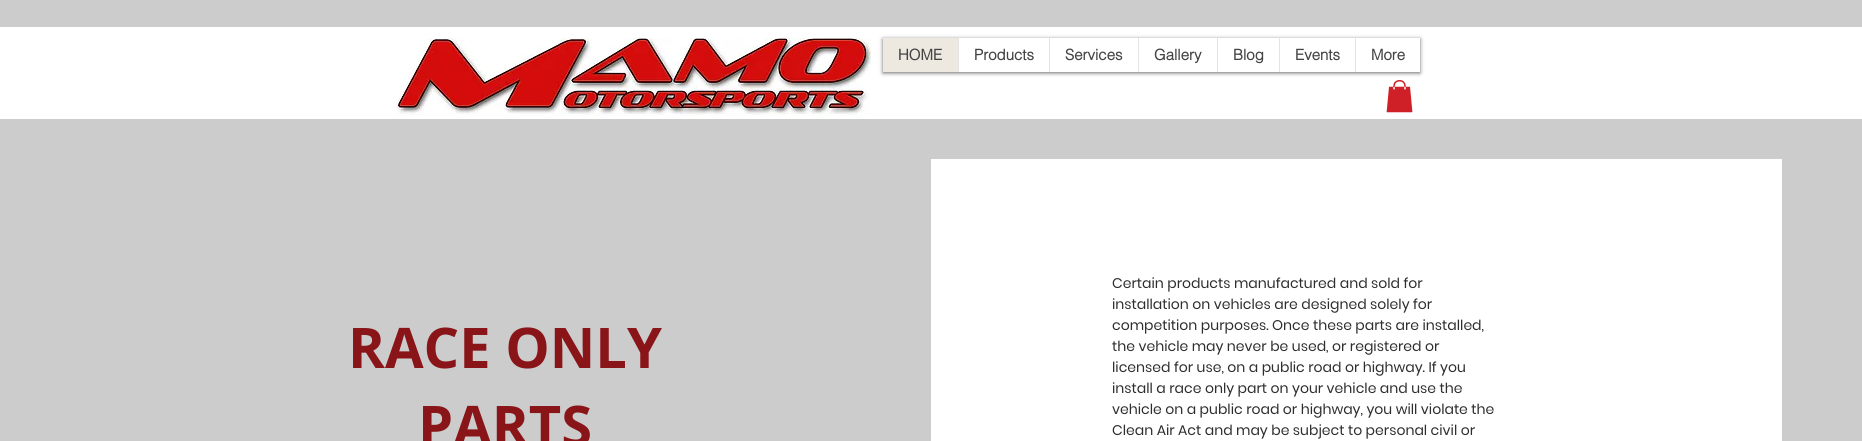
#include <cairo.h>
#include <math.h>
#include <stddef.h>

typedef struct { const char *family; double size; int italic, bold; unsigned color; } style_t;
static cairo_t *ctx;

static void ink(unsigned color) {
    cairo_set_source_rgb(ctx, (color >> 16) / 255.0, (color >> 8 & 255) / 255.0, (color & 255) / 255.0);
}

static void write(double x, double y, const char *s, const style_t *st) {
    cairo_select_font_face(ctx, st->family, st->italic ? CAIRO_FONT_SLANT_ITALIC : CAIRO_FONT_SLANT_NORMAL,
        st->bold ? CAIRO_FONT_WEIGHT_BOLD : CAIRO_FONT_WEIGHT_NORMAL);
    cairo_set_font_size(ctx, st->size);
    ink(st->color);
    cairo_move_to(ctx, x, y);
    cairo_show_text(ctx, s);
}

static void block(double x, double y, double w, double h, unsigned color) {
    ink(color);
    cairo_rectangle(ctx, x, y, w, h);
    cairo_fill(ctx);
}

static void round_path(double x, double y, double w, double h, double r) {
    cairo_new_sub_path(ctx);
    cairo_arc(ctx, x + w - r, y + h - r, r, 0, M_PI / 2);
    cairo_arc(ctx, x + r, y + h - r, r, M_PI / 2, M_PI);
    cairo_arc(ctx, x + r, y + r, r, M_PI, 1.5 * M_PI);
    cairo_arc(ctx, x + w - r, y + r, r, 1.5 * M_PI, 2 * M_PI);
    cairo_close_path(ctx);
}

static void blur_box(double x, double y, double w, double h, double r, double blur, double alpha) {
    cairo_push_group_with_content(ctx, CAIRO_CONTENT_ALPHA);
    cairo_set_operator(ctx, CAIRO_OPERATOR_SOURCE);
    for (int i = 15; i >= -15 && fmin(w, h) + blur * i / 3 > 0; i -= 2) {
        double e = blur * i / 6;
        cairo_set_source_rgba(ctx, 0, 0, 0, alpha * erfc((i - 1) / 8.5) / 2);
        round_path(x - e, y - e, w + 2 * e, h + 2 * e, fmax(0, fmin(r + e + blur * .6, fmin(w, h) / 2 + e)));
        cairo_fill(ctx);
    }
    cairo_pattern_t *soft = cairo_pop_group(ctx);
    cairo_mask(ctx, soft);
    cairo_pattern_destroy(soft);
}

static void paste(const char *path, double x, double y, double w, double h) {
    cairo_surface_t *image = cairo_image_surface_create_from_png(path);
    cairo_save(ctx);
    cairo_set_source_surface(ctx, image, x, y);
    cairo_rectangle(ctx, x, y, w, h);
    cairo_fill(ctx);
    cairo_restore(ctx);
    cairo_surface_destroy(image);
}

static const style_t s1 = {"helvetica", 15, 0, 1, 0x444444};
static const style_t s2 = {"Open Sans", 56, 0, 1, 0x891519};
static const style_t s3 = {"Poppins", 14, 0, 0, 0x2f2e2e};

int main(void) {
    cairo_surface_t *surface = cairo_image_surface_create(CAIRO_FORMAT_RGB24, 1862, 441);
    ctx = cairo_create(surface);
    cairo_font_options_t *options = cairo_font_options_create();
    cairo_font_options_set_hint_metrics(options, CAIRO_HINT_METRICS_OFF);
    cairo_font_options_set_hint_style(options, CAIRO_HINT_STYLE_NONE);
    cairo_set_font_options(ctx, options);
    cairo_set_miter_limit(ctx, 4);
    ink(0xcccccc);
    cairo_paint(ctx);
    block(0, 27, 1862, 92, 0xffffff);
    paste("pic1.png", 393, 38, 478, 78);
    cairo_save(ctx);
    cairo_set_fill_rule(ctx, CAIRO_FILL_RULE_EVEN_ODD);
    cairo_new_path(ctx);
    cairo_move_to(ctx, 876, 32);
    cairo_line_to(ctx, 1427, 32);
    cairo_line_to(ctx, 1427, 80);
    cairo_line_to(ctx, 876, 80);
    cairo_close_path(ctx);
    cairo_move_to(ctx, 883, 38);
    cairo_line_to(ctx, 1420, 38);
    cairo_line_to(ctx, 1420, 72);
    cairo_line_to(ctx, 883, 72);
    cairo_close_path(ctx);
    cairo_clip(ctx);
    ink(0x000000);
    blur_box(883, 39, 537, 34, 0, 2, 0.6);
    cairo_restore(ctx);
    block(883, 38, 75, 34, 0xede9e1);
    write(898, 60, "HOME", &s1);
    block(958, 38, 1, 34, 0xe3e3e3);
    write(974, 60, "Products", &s1);
    block(1049, 38, 1, 34, 0xe3e3e3);
    write(1065, 60, "Services", &s1);
    block(1138, 38, 1, 34, 0xe3e3e3);
    write(1154, 60, "Gallery", &s1);
    block(1217, 38, 1, 34, 0xe3e3e3);
    write(1233, 60, "Blog", &s1);
    block(1279, 38, 1, 34, 0xe3e3e3);
    write(1295, 60, "Events", &s1);
    block(1355, 38, 1, 34, 0xe3e3e3);
    write(1371, 60, "More", &s1);
    paste("pic2.png", 1386, 80, 27, 33);
    write(348, 368, "RACE ONLY", &s2);
    write(418, 446, "PARTS", &s2);
    block(931, 159, 851, 282, 0xffffff);
    write(1112, 288, "Certain products manufactured and sold for", &s3);
    write(1112, 309, "installation on vehicles are designed solely for", &s3);
    write(1112, 330, "competition purposes. Once these parts are installed,", &s3);
    write(1112, 351, "the vehicle may never be used, or registered or", &s3);
    write(1112, 372, "licensed for use, on a public road or highway. If you", &s3);
    write(1112, 393, "install a race only part on your vehicle and use the", &s3);
    write(1112, 414, "vehicle on a public road or highway, you will violate the", &s3);
    write(1112, 435, "Clean Air Act and may be subject to personal civil or", &s3);
    cairo_surface_write_to_png(surface, "screenshot.png");
    cairo_font_options_destroy(options);
    cairo_destroy(ctx);
    cairo_surface_destroy(surface);
    return 0;
}
